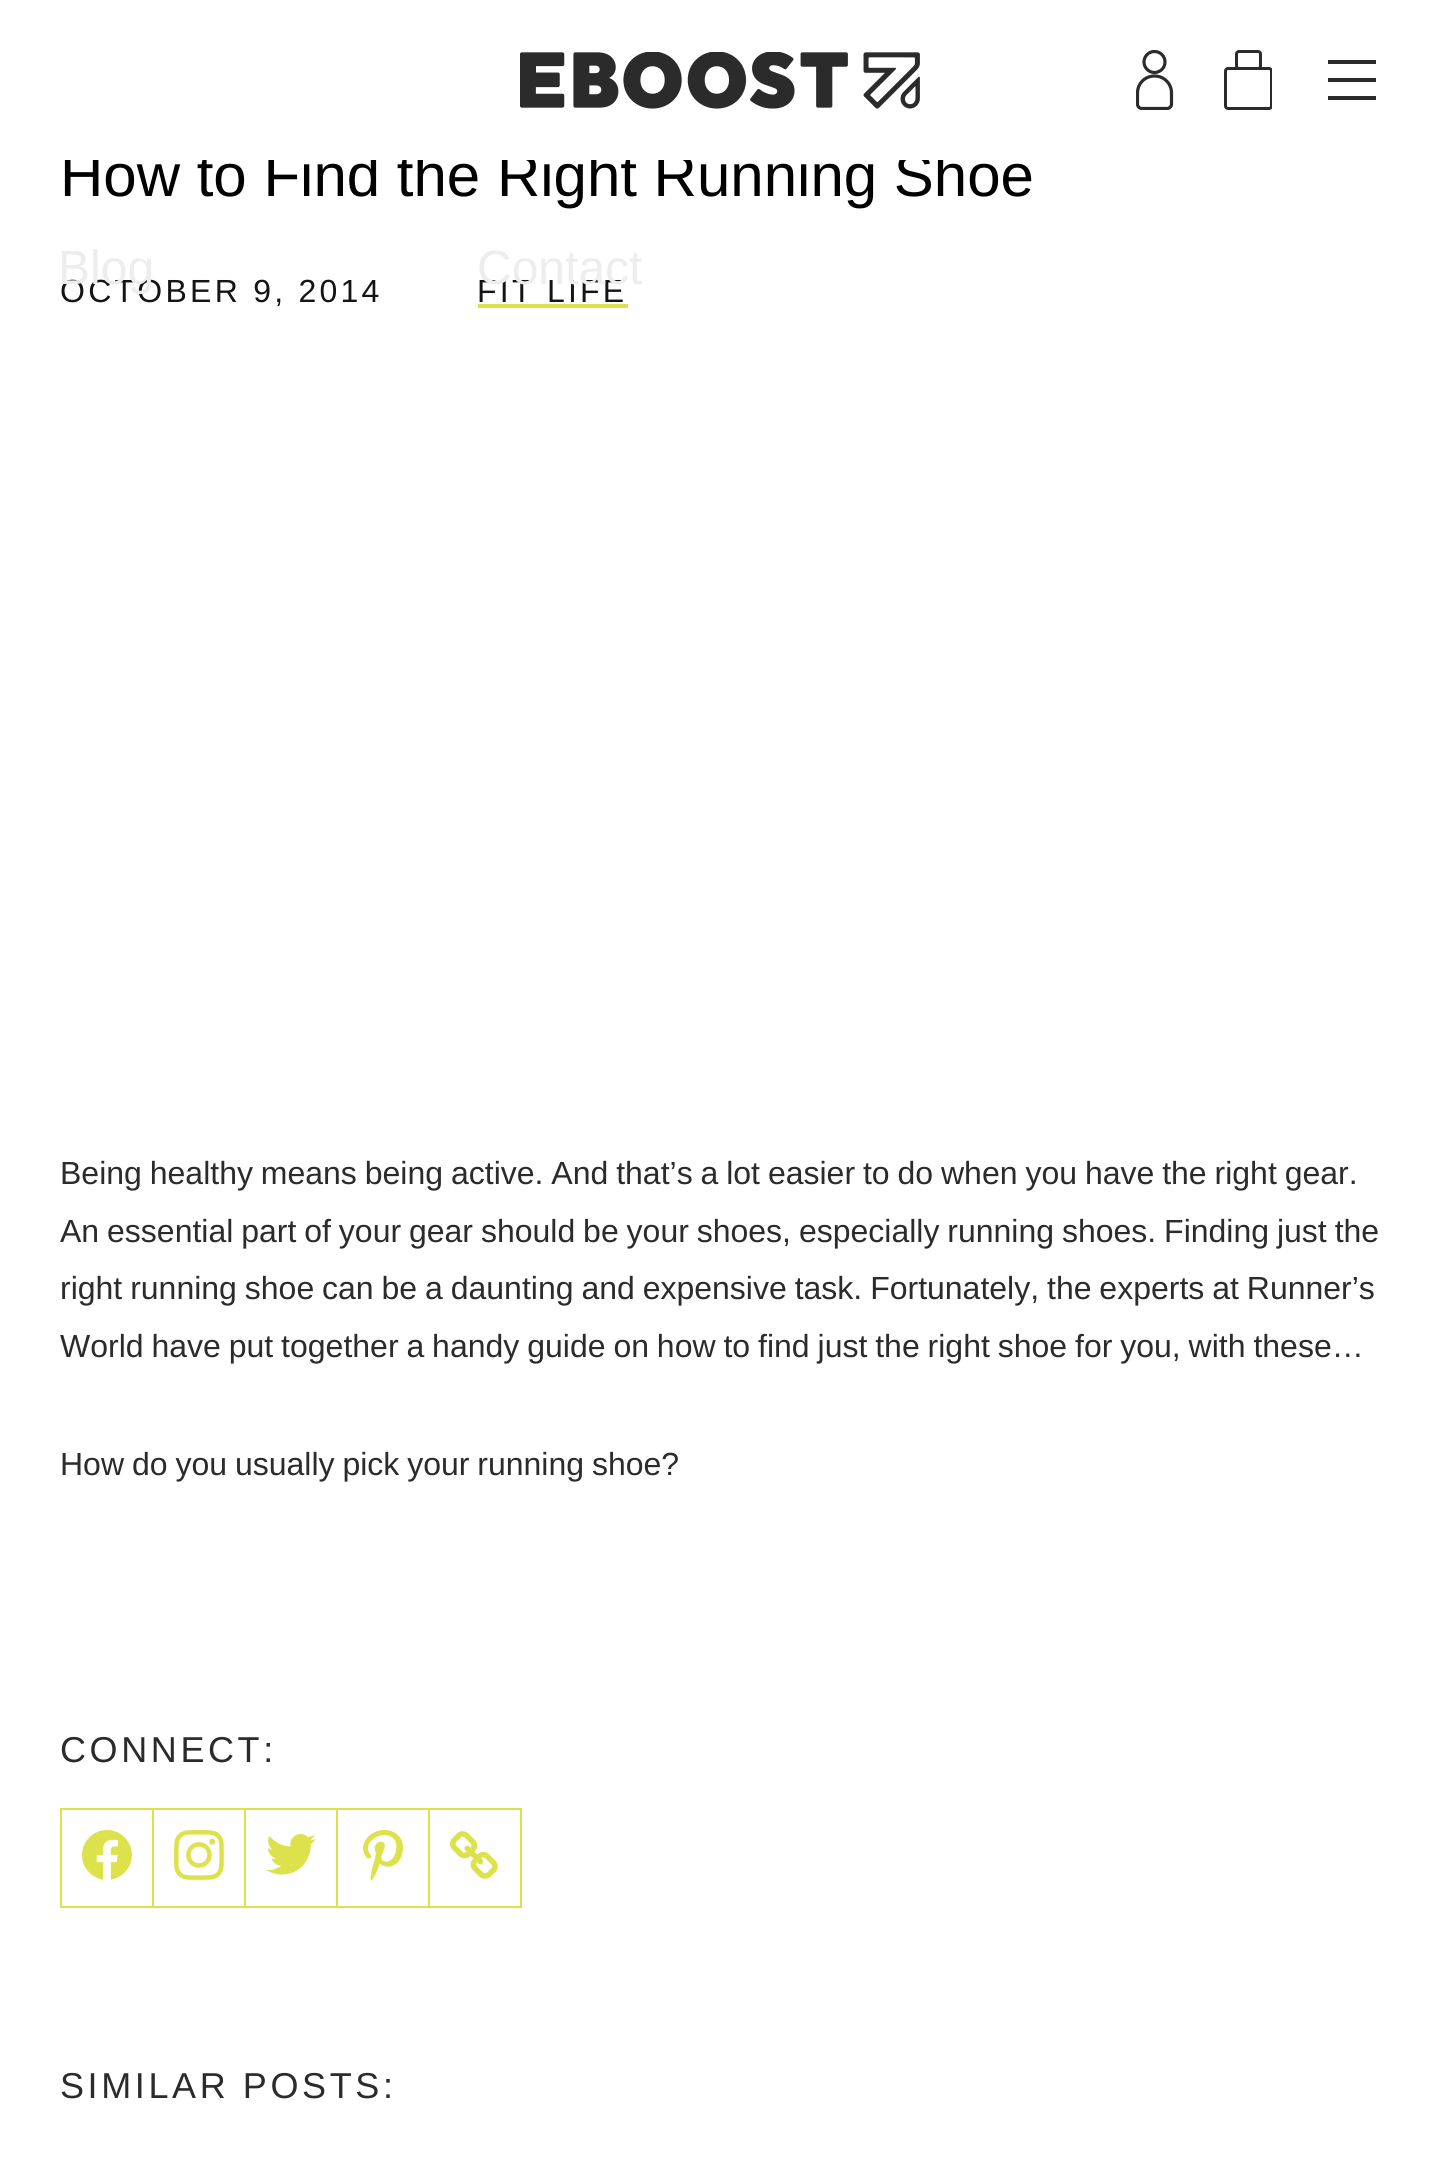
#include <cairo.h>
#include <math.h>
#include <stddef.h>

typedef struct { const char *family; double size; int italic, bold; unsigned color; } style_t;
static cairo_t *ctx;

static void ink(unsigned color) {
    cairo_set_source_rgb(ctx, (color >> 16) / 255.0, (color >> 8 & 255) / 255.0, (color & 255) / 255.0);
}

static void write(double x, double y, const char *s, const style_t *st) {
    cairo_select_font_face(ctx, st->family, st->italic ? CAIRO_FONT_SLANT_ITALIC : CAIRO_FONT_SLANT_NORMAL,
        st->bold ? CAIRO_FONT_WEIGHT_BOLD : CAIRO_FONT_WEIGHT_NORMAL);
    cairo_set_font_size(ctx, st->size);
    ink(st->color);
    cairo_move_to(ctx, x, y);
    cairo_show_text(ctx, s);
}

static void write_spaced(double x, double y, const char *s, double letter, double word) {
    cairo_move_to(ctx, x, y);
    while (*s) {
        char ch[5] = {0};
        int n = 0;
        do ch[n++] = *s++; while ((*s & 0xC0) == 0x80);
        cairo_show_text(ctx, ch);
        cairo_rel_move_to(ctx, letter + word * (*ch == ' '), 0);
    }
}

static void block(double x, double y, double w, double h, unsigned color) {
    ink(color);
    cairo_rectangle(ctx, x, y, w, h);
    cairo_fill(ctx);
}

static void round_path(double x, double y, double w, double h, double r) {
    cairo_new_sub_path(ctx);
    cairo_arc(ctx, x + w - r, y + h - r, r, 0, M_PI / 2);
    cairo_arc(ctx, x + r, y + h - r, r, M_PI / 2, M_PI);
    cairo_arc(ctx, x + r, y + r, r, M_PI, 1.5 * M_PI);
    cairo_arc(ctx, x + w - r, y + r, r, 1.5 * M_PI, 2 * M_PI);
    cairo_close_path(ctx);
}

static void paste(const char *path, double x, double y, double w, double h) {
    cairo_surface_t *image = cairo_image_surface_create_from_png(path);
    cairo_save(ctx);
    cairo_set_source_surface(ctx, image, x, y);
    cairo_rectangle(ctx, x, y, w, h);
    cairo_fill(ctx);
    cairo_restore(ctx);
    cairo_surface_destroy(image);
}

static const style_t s1 = {"Liberation Sans", 60, 0, 0, 0x000000};
static const style_t s2 = {"Liberation Sans", 48, 0, 0, 0xededed};

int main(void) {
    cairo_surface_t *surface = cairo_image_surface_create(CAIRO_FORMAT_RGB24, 1439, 2168);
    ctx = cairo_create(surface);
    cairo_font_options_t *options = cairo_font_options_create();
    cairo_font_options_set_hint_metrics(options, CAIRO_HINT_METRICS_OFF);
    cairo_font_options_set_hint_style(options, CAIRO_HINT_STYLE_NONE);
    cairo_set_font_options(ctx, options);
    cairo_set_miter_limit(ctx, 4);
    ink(0xffffff);
    cairo_paint(ctx);
    write(60, 196, "How to Find the Right Running Shoe", &s1);
    cairo_set_font_size(ctx, 32);
    ink(0x141414);
    write_spaced(60, 302, "OCTOBER 9, 2014", 3.25, 0);
    write_spaced(477, 302, "FIT LIFE", 3.25, 0);
    block(478, 304, 150, 4, 0xdde24c);
    ink(0x2b2b2b);
    write_spaced(60, 1184, "Being healthy means being active. And that’s a lot easier to do when you have the right gear.", 0, -1);
    write_spaced(60, 1242, "An essential part of your gear should be your shoes, especially running shoes. Finding just the", 0, -1);
    write_spaced(60, 1299, "right running shoe can be a daunting and expensive task. Fortunately, the experts at Runner’s", 0, -1);
    write_spaced(60, 1357, "World have put together a handy guide on how to find just the right shoe for you, with these…", 0, -1);
    write_spaced(60, 1475, "How do you usually pick your running shoe?", 0, -1);
    cairo_set_font_size(ctx, 36);
    write_spaced(60, 1762, "CONNECT:", 3.6, 0);
    cairo_rectangle(ctx, 61, 1809, 92, 98);
    ink(0xdde24c);
    cairo_stroke(ctx);
    paste("pic1.png", 82, 1830, 50, 50);
    block(154, 1808, 368, 2, 0xdde24c);
    block(244, 1808, 2, 100, 0xdde24c);
    block(154, 1906, 92, 2, 0xdde24c);
    paste("pic2.png", 174, 1830, 50, 50);
    block(336, 1808, 2, 100, 0xdde24c);
    block(246, 1906, 92, 2, 0xdde24c);
    paste("pic3.png", 266, 1834, 50, 41);
    block(428, 1808, 2, 100, 0xdde24c);
    block(338, 1906, 92, 2, 0xdde24c);
    paste("pic4.png", 363, 1830, 40, 50);
    block(520, 1808, 2, 100, 0xdde24c);
    block(430, 1906, 92, 2, 0xdde24c);
    paste("pic5.png", 450, 1831, 48, 48);
    ink(0x2b2b2b);
    write_spaced(60, 2098, "SIMILAR POSTS:", 3.6, 0);
    block(64, 152, 880, 8, 0xffffff);
    paste("pic6.png", 520, 52, 400, 57);
    cairo_arc(ctx, 1154.5, 62, 10.5, 0, 2 * M_PI);
    ink(0x2b2b2b);
    cairo_set_line_width(ctx, 3.2);
    cairo_stroke(ctx);
    cairo_save(ctx);
    cairo_rectangle(ctx, 1136, 50, 38, 60);
    cairo_clip(ctx);
    cairo_new_path(ctx);
    cairo_move_to(ctx, 1154.5, 76);
    cairo_curve_to(ctx, 1164, 76, 1171.5, 83.5, 1171.5, 93);
    cairo_line_to(ctx, 1171.5, 104);
    cairo_curve_to(ctx, 1171.5, 106.5, 1169.5, 108.5, 1167, 108.5);
    cairo_line_to(ctx, 1142, 108.5);
    cairo_curve_to(ctx, 1139.5, 108.5, 1137.5, 106.5, 1137.5, 104);
    cairo_line_to(ctx, 1137.5, 93);
    cairo_curve_to(ctx, 1137.5, 83.5, 1145, 76, 1154.5, 76);
    cairo_close_path(ctx);
    cairo_stroke(ctx);
    cairo_restore(ctx);
    cairo_save(ctx);
    cairo_rectangle(ctx, 1224, 50, 48, 60);
    cairo_clip(ctx);
    round_path(1225.5, 68.5, 46, 40, 2.5);
    cairo_set_line_width(ctx, 3);
    cairo_stroke(ctx);
    cairo_restore(ctx);
    round_path(1236.5, 51.5, 24, 17, 2.5);
    cairo_set_line_width(ctx, 3);
    cairo_stroke(ctx);
    block(1328, 60, 48, 4, 0x2b2b2b);
    block(1328, 78, 48, 4, 0x2b2b2b);
    block(1328, 96, 48, 4, 0x2b2b2b);
    write(58, 284, "Blog", &s2);
    write(477, 284, "Contact", &s2);
    cairo_surface_write_to_png(surface, "screenshot.png");
    cairo_font_options_destroy(options);
    cairo_destroy(ctx);
    cairo_surface_destroy(surface);
    return 0;
}
